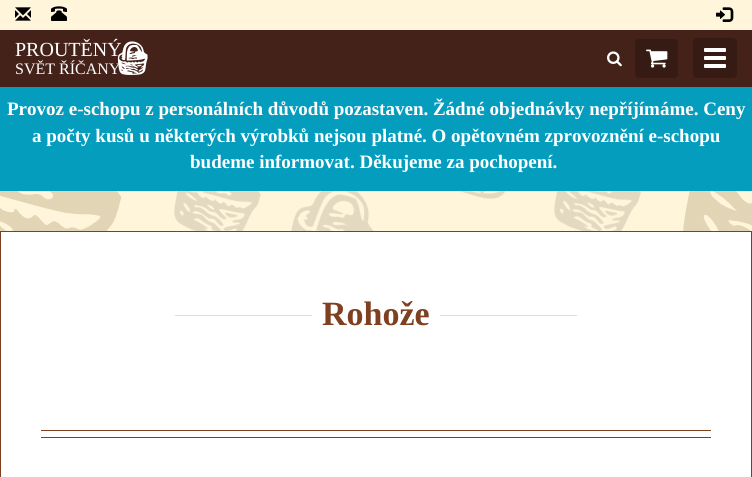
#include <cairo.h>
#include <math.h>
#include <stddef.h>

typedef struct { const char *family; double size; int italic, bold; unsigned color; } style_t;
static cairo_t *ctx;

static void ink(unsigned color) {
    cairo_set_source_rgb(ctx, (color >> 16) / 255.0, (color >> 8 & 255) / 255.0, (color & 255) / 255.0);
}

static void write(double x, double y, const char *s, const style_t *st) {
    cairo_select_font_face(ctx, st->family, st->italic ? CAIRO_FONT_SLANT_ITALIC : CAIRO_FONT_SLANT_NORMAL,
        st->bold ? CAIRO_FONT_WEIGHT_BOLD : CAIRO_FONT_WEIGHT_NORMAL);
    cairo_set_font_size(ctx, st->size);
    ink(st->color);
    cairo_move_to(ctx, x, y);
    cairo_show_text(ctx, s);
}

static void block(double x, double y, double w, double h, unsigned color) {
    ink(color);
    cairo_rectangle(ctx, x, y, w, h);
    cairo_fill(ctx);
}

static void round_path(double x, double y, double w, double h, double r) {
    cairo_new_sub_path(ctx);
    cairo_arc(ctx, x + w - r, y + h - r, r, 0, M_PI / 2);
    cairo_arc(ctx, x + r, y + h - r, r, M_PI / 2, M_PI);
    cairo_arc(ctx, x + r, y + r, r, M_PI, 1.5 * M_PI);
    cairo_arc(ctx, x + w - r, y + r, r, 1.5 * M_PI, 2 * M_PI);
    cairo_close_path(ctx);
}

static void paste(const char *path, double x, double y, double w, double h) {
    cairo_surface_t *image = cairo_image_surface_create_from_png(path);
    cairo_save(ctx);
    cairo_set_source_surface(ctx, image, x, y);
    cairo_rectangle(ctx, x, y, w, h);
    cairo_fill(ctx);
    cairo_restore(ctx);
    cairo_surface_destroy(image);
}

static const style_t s1 = {"Liberation Serif", 20, 0, 0, 0xffffff};
static const style_t s2 = {"Liberation Serif", 16, 0, 0, 0xffffff};
static const style_t s3 = {"Liberation Serif", 19, 0, 1, 0xffffff};
static const style_t s4 = {"Liberation Serif", 34, 0, 1, 0x7f3f21};

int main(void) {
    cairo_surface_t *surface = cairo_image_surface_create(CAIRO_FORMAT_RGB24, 752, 477);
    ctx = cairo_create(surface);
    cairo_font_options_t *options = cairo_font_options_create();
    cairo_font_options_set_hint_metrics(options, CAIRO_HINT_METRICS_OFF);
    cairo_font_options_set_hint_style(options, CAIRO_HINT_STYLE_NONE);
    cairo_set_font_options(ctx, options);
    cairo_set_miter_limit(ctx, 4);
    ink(0xffffff);
    cairo_paint(ctx);
    paste("pic1.png", 0, 191, 752, 40);
    block(0, 30, 752, 57, 0x44221a);
    block(0, 0, 752, 30, 0xfff5db);
    paste("pic2.png", 15, 7, 16, 14);
    paste("pic3.png", 51, 6, 16, 15);
    paste("pic4.png", 716, 7, 18, 15);
    paste("pic5.png", 117, 41, 31, 34);
    write(15, 56, "PROUTĚNÝ", &s1);
    write(15, 74, "SVĚT ŘÍČANY", &s2);
    paste("pic6.png", 607, 51, 15, 16);
    ink(0x361b15);
    round_path(635, 39, 43, 39, 4);
    cairo_fill(ctx);
    paste("pic7.png", 646, 49, 22, 19);
    round_path(693, 38, 44, 40, 4);
    cairo_fill(ctx);
    ink(0xffffff);
    round_path(704, 48, 22, 4, 1);
    cairo_fill(ctx);
    round_path(704, 56, 22, 4, 1);
    cairo_fill(ctx);
    round_path(704, 64, 22, 4, 1);
    cairo_fill(ctx);
    block(0, 87, 752, 104, 0x049dbe);
    write(7, 115, "Provoz e-schopu z personálních důvodů pozastaven. Žádné objednávky nepříjímáme. Ceny", &s3);
    write(32, 142, "a počty kusů u některých výrobků nejsou platné. O opětovném zprovoznění e-schopu", &s3);
    write(190, 168, "budeme informovat. Děkujeme za pochopení.", &s3);
    cairo_rectangle(ctx, 0.5, 231.5, 751, 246);
    ink(0x7f3f21);
    cairo_set_line_width(ctx, 1);
    cairo_stroke(ctx);
    block(175, 315, 402, 1, 0xdddddd);
    block(312, 315, 128, 1, 0xffffff);
    write(322, 325, "Rohože", &s4);
    block(41, 430, 670, 1, 0x7f3f21);
    block(41, 437, 670, 1, 0x7f3f21);
    cairo_surface_write_to_png(surface, "screenshot.png");
    cairo_font_options_destroy(options);
    cairo_destroy(ctx);
    cairo_surface_destroy(surface);
    return 0;
}
